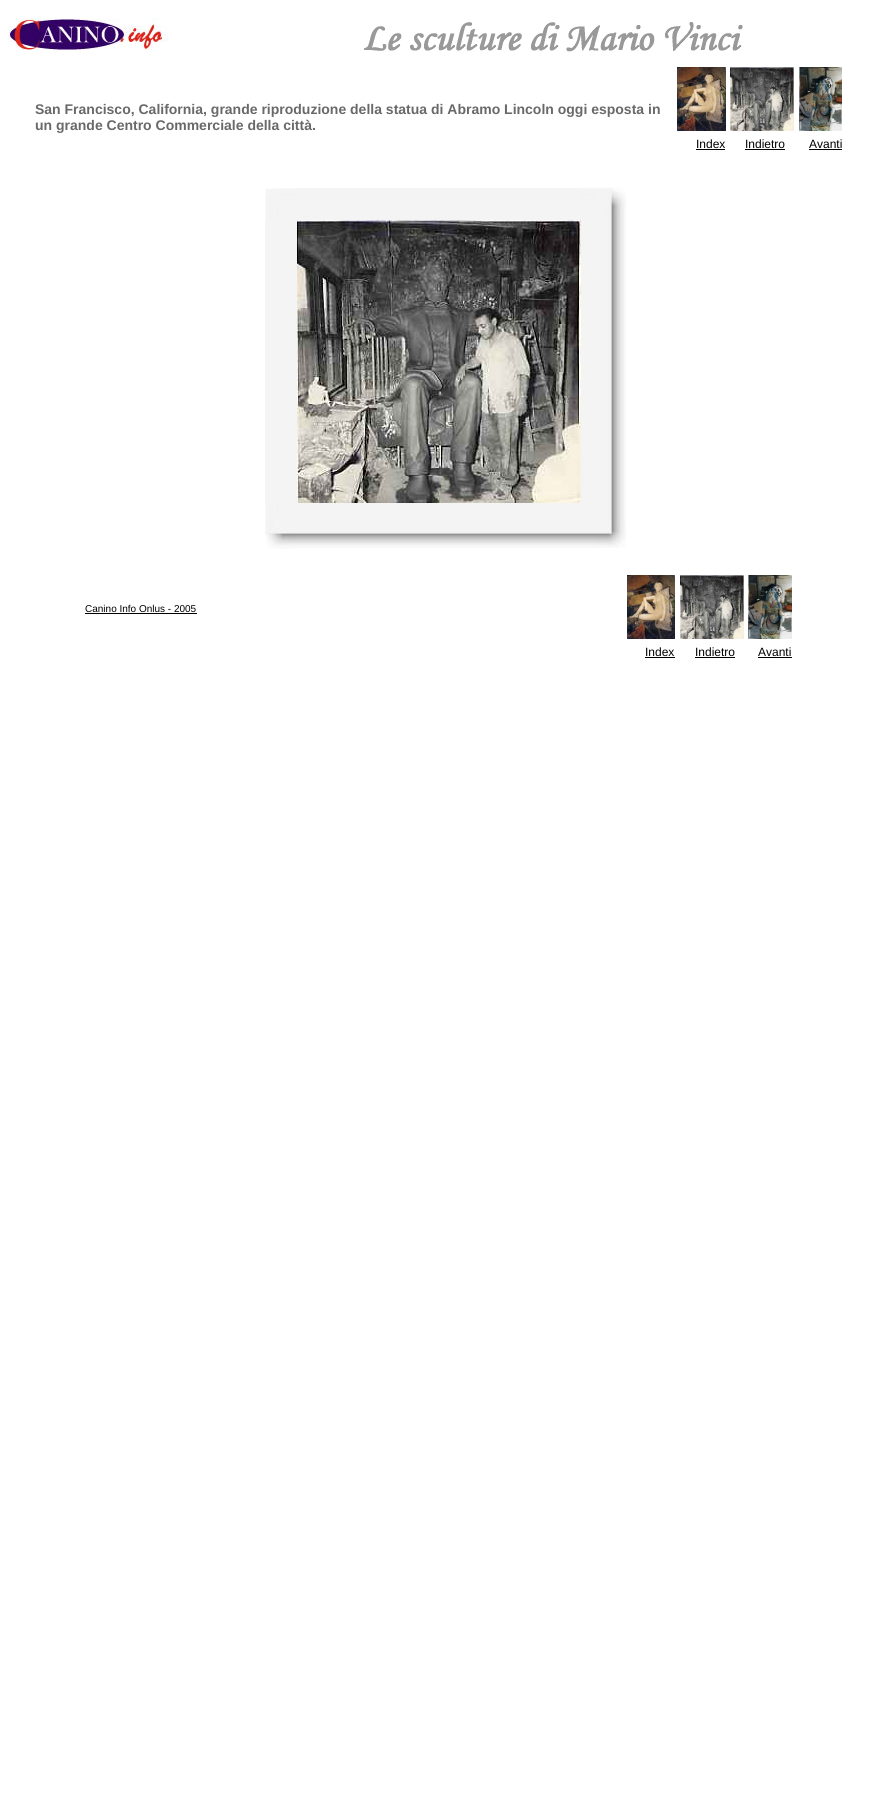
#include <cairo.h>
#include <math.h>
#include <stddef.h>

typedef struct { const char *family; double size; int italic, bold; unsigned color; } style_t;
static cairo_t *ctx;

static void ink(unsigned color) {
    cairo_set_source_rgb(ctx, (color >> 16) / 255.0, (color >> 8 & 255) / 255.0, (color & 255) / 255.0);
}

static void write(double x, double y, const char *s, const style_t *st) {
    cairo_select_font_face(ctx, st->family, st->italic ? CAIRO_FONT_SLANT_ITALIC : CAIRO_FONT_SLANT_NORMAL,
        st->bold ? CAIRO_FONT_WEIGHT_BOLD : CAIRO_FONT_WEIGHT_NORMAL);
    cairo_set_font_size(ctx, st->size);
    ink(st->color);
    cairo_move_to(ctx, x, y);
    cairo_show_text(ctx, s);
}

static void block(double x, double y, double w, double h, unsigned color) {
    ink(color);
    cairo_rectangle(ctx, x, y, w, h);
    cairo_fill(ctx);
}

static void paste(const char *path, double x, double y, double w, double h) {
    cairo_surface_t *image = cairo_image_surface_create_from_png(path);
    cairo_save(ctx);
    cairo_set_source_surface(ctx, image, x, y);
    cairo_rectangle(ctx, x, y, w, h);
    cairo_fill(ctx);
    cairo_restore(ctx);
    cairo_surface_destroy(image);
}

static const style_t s1 = {"Liberation Sans", 14, 0, 1, 0x696969};
static const style_t s2 = {"Liberation Sans", 12, 0, 0, 0x000000};
static const style_t s3 = {"Liberation Sans", 10, 0, 0, 0x000000};

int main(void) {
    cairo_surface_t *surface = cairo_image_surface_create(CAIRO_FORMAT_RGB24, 877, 1805);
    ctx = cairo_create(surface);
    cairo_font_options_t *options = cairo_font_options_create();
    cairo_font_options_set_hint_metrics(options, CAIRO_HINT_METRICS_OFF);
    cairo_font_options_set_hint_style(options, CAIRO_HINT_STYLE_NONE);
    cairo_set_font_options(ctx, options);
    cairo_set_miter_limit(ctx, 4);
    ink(0xffffff);
    cairo_paint(ctx);
    paste("pic1.png", 8, 18, 160, 32);
    paste("pic2.png", 364, 22, 379, 30);
    write(35, 114, "San Francisco, California, grande riproduzione della statua di Abramo Lincoln oggi esposta in", &s1);
    write(35, 130, "un grande Centro Commerciale della città.", &s1);
    paste("pic3.png", 677, 67, 49, 64);
    paste("pic4.png", 730, 67, 64, 64);
    paste("pic5.png", 799, 67, 43, 64);
    write(696, 148, "Index", &s2);
    block(696, 149, 29, 1, 0x000000);
    write(745, 148, "Indietro", &s2);
    block(745, 149, 40, 1, 0x000000);
    write(809, 148, "Avanti", &s2);
    block(809, 149, 33, 1, 0x000000);
    paste("pic6.png", 265, 188, 32, 32);
    block(297, 188, 284, 32, 0xf4f4f4);
    paste("pic7.png", 581, 187, 45, 33);
    block(265, 220, 32, 283, 0xf4f4f4);
    paste("pic8.png", 297, 220, 284, 283);
    paste("pic9.png", 581, 220, 45, 283);
    paste("pic10.png", 265, 503, 32, 46);
    paste("pic11.png", 297, 503, 284, 45);
    paste("pic12.png", 581, 503, 45, 45);
    write(85, 612, "Canino Info Onlus - 2005", &s3);
    block(85, 613, 112, 1, 0x000000);
    paste("pic13.png", 627, 575, 48, 64);
    paste("pic4.png", 680, 575, 64, 64);
    paste("pic14.png", 748, 575, 44, 64);
    write(645, 656, "Index", &s2);
    block(645, 657, 30, 1, 0x000000);
    write(695, 656, "Indietro", &s2);
    block(695, 657, 40, 1, 0x000000);
    write(758, 656, "Avanti", &s2);
    block(758, 657, 34, 1, 0x000000);
    cairo_surface_write_to_png(surface, "screenshot.png");
    cairo_font_options_destroy(options);
    cairo_destroy(ctx);
    cairo_surface_destroy(surface);
    return 0;
}
